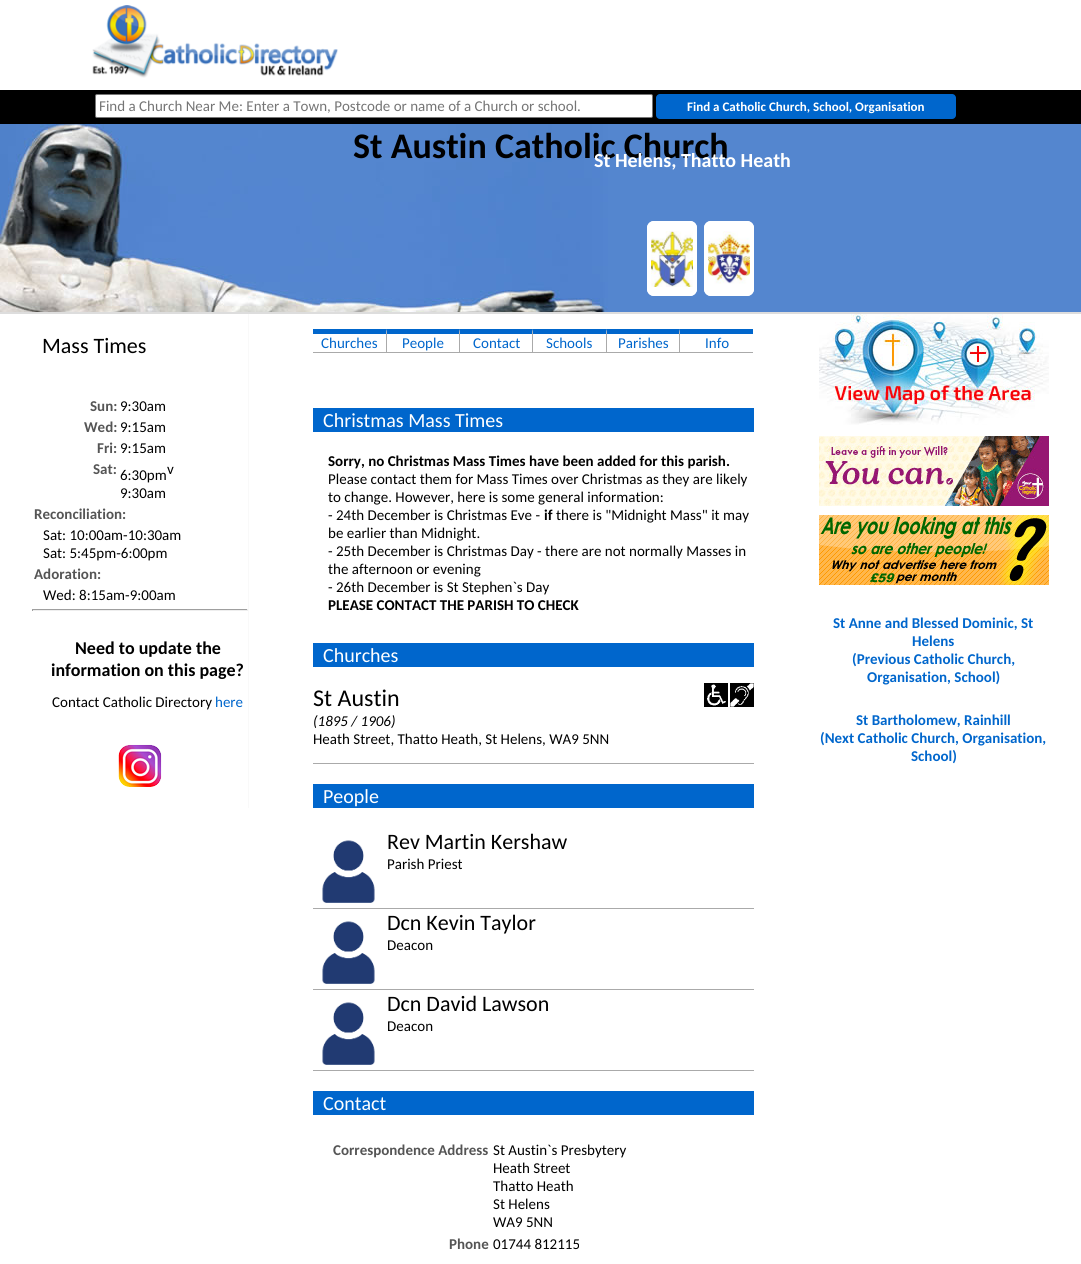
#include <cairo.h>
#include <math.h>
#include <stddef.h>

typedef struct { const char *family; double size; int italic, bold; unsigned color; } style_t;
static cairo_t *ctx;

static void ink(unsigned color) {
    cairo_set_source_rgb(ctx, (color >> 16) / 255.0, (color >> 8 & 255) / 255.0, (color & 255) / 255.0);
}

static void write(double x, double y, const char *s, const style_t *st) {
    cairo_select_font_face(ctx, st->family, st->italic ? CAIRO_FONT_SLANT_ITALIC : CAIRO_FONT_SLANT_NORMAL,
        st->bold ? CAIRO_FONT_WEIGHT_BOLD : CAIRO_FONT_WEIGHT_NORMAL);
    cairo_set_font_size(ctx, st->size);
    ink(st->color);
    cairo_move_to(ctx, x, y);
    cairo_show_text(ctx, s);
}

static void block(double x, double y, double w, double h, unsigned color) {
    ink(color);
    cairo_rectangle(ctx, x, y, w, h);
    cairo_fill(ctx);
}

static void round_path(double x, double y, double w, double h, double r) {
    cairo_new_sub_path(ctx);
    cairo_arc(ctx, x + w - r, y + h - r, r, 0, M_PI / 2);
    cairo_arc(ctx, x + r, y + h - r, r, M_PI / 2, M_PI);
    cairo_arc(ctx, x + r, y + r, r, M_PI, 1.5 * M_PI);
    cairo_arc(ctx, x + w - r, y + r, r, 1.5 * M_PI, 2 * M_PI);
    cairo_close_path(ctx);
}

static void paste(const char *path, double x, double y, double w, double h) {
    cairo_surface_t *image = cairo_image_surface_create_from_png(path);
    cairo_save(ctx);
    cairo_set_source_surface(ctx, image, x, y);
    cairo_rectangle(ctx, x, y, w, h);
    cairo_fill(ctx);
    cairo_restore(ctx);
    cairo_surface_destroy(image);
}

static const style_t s1 = {"Carlito", 15, 0, 0, 0x757575};
static const style_t s2 = {"Carlito", 13, 0, 1, 0xffffff};
static const style_t s3 = {"Carlito", 36, 0, 1, 0x000000};
static const style_t s4 = {"Carlito", 20, 0, 1, 0xffffff};
static const style_t s5 = {"Carlito", 22, 0, 0, 0x000000};
static const style_t s6 = {"Carlito", 15, 0, 1, 0x555555};
static const style_t s7 = {"Carlito", 15, 0, 0, 0x000000};
static const style_t s8 = {"Carlito", 18, 0, 1, 0x000000};
static const style_t s9 = {"Carlito", 15, 0, 0, 0x0066cc};
static const style_t s10 = {"Carlito", 20, 0, 0, 0xffffff};
static const style_t s11 = {"Carlito", 15, 0, 1, 0x000000};
static const style_t s12 = {"Carlito", 24, 0, 0, 0x000000};
static const style_t s13 = {"Carlito", 15, 1, 0, 0x000000};
static const style_t s14 = {"Carlito", 15, 0, 1, 0x0066cc};

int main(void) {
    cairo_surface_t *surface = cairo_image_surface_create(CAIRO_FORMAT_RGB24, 1081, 1264);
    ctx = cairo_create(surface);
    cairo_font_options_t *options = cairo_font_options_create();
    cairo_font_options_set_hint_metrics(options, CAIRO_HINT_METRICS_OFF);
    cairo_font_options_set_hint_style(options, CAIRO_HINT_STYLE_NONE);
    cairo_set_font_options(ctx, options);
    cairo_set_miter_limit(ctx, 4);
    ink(0xffffff);
    cairo_paint(ctx);
    paste("pic1.png", 92, 5, 246, 73);
    block(0, 90, 1081, 34, 0x000000);
    ink(0xffffff);
    round_path(95.5, 94.5, 557, 23, 1.5);
    cairo_fill_preserve(ctx);
    ink(0x767676);
    cairo_set_line_width(ctx, 1);
    cairo_stroke(ctx);
    write(99, 111, "Find a Church Near Me: Enter a Town, Postcode or name of a Church or school.", &s1);
    ink(0x0066cc);
    round_path(656, 94, 300, 25, 4);
    cairo_fill(ctx);
    write(687, 111, "Find a Catholic Church, School, Organisation", &s2);
    block(608, 124, 473, 188, 0x5486cf);
    paste("pic2.png", 0, 124, 608, 188);
    block(0, 312, 1081, 2, 0xdddddd);
    write(353, 158, "St Austin Catholic Church", &s3);
    write(594, 167, "St Helens, Thatto Heath", &s4);
    block(248, 314, 1, 494, 0xf9f9f9);
    write(42, 353, "Mass Times", &s5);
    write(90, 411, "Sun:", &s6);
    write(120, 411, "9:30am", &s7);
    write(84, 432, "Wed:", &s6);
    write(120, 432, "9:15am", &s7);
    write(97, 453, "Fri:", &s6);
    write(120, 453, "9:15am", &s7);
    write(93, 474, "Sat:", &s6);
    write(120, 480, "6:30pm", &s7);
    write(167, 474, "v", &s7);
    write(120, 498, "9:30am", &s7);
    write(34, 519, "Reconciliation:", &s6);
    write(43, 540, "Sat: 10:00am-10:30am", &s7);
    write(43, 558, "Sat: 5:45pm-6:00pm", &s7);
    write(34, 579, "Adoration:", &s6);
    write(43, 600, "Wed: 8:15am-9:00am", &s7);
    block(32, 609, 216, 1, 0x9f9f9f);
    block(247, 609, 1, 2, 0xeeeeee);
    block(32, 610, 216, 1, 0xeeeeee);
    block(32, 609, 1, 2, 0x9f9f9f);
    write(75, 654, "Need to update the", &s8);
    write(51, 676, "information on this page?", &s8);
    write(52, 707, "Contact Catholic Directory", &s7);
    write(215, 707, "here", &s9);
    paste("pic3.png", 118, 744, 44, 43);
    ink(0xffffff);
    round_path(647, 221, 50, 75, 7);
    cairo_fill(ctx);
    paste("pic4.png", 651, 231, 42, 56);
    round_path(649, 223, 46, 71, 5);
    cairo_set_line_width(ctx, 4);
    cairo_stroke(ctx);
    round_path(704, 221, 50, 75, 7);
    cairo_fill(ctx);
    paste("pic5.png", 708, 231, 42, 53);
    round_path(706, 223, 46, 71, 5);
    cairo_stroke(ctx);
    ink(0x0066cc);
    cairo_new_path(ctx);
    cairo_move_to(ctx, 313, 329);
    cairo_line_to(ctx, 387, 329);
    cairo_line_to(ctx, 386, 334);
    cairo_line_to(ctx, 313, 334);
    cairo_close_path(ctx);
    cairo_fill(ctx);
    ink(0xaaaaaa);
    cairo_new_path(ctx);
    cairo_move_to(ctx, 387, 329);
    cairo_line_to(ctx, 387, 353);
    cairo_line_to(ctx, 386, 352);
    cairo_line_to(ctx, 386, 334);
    cairo_close_path(ctx);
    cairo_fill(ctx);
    block(313, 352, 74, 1, 0xaaaaaa);
    write(321, 348, "Churches", &s9);
    cairo_new_path(ctx);
    cairo_move_to(ctx, 387, 329);
    cairo_line_to(ctx, 460, 329);
    cairo_line_to(ctx, 459, 334);
    cairo_line_to(ctx, 387, 334);
    cairo_close_path(ctx);
    cairo_fill(ctx);
    ink(0xaaaaaa);
    cairo_new_path(ctx);
    cairo_move_to(ctx, 460, 329);
    cairo_line_to(ctx, 460, 353);
    cairo_line_to(ctx, 459, 352);
    cairo_line_to(ctx, 459, 334);
    cairo_close_path(ctx);
    cairo_fill(ctx);
    block(387, 352, 73, 1, 0xaaaaaa);
    write(402, 348, "People", &s9);
    cairo_new_path(ctx);
    cairo_move_to(ctx, 460, 329);
    cairo_line_to(ctx, 533, 329);
    cairo_line_to(ctx, 532, 334);
    cairo_line_to(ctx, 460, 334);
    cairo_close_path(ctx);
    cairo_fill(ctx);
    ink(0xaaaaaa);
    cairo_new_path(ctx);
    cairo_move_to(ctx, 533, 329);
    cairo_line_to(ctx, 533, 353);
    cairo_line_to(ctx, 532, 352);
    cairo_line_to(ctx, 532, 334);
    cairo_close_path(ctx);
    cairo_fill(ctx);
    block(460, 352, 73, 1, 0xaaaaaa);
    write(473, 348, "Contact", &s9);
    cairo_new_path(ctx);
    cairo_move_to(ctx, 533, 329);
    cairo_line_to(ctx, 607, 329);
    cairo_line_to(ctx, 606, 334);
    cairo_line_to(ctx, 533, 334);
    cairo_close_path(ctx);
    cairo_fill(ctx);
    ink(0xaaaaaa);
    cairo_new_path(ctx);
    cairo_move_to(ctx, 607, 329);
    cairo_line_to(ctx, 607, 353);
    cairo_line_to(ctx, 606, 352);
    cairo_line_to(ctx, 606, 334);
    cairo_close_path(ctx);
    cairo_fill(ctx);
    block(533, 352, 74, 1, 0xaaaaaa);
    write(546, 348, "Schools", &s9);
    cairo_new_path(ctx);
    cairo_move_to(ctx, 607, 329);
    cairo_line_to(ctx, 680, 329);
    cairo_line_to(ctx, 679, 334);
    cairo_line_to(ctx, 607, 334);
    cairo_close_path(ctx);
    cairo_fill(ctx);
    ink(0xaaaaaa);
    cairo_new_path(ctx);
    cairo_move_to(ctx, 680, 329);
    cairo_line_to(ctx, 680, 353);
    cairo_line_to(ctx, 679, 352);
    cairo_line_to(ctx, 679, 334);
    cairo_close_path(ctx);
    cairo_fill(ctx);
    block(607, 352, 146, 1, 0xaaaaaa);
    write(618, 348, "Parishes", &s9);
    block(680, 329, 73, 5, 0x0066cc);
    write(705, 348, "Info", &s9);
    block(313, 408, 441, 24, 0x0066cc);
    write(323, 427, "Christmas Mass Times", &s10);
    write(328, 466, "Sorry, no Christmas Mass Times have been added for this parish.", &s11);
    write(328, 484, "Please contact them for Mass Times over Christmas as they are likely", &s7);
    write(328, 502, "to change. However, here is some general information:", &s7);
    write(328, 520, "- 24th December is Christmas Eve -", &s7);
    write(544, 520, "if", &s11);
    write(556, 520, "there is \"Midnight Mass\" it may", &s7);
    write(328, 538, "be earlier than Midnight.", &s7);
    write(328, 556, "- 25th December is Christmas Day - there are not normally Masses in", &s7);
    write(328, 574, "the afternoon or evening", &s7);
    write(328, 592, "- 26th December is St Stephen`s Day", &s7);
    write(328, 610, "PLEASE CONTACT THE PARISH TO CHECK", &s11);
    block(313, 643, 441, 24, 0x0066cc);
    write(323, 662, "Churches", &s10);
    block(313, 763, 441, 1, 0xaaaaaa);
    write(313, 706, "St Austin", &s12);
    paste("pic6.png", 704, 683, 24, 24);
    paste("pic7.png", 730, 683, 24, 24);
    write(313, 726, "(1895 / 1906)", &s13);
    write(313, 744, "Heath Street, Thatto Heath, St Helens, WA9 5NN", &s7);
    block(313, 784, 441, 24, 0x0066cc);
    write(323, 803, "People", &s10);
    block(313, 908, 441, 1, 0xaaaaaa);
    paste("pic8.png", 322, 840, 53, 63);
    write(387, 849, "Rev Martin Kershaw", &s5);
    write(387, 869, "Parish Priest", &s7);
    block(313, 989, 441, 1, 0xaaaaaa);
    paste("pic9.png", 322, 921, 53, 63);
    write(387, 930, "Dcn Kevin Taylor", &s5);
    write(387, 950, "Deacon", &s7);
    block(313, 1070, 441, 1, 0xaaaaaa);
    paste("pic10.png", 322, 1002, 53, 63);
    write(387, 1011, "Dcn David Lawson", &s5);
    write(387, 1031, "Deacon", &s7);
    block(313, 1091, 441, 24, 0x0066cc);
    write(323, 1110, "Contact", &s10);
    write(333, 1155, "Correspondence Address", &s6);
    write(493, 1155, "St Austin`s Presbytery", &s7);
    write(493, 1173, "Heath Street", &s7);
    write(493, 1191, "Thatto Heath", &s7);
    write(493, 1209, "St Helens", &s7);
    write(493, 1227, "WA9 5NN", &s7);
    write(449, 1249, "Phone", &s6);
    write(493, 1249, "01744 812115", &s7);
    paste("pic11.png", 819, 314, 230, 111);
    paste("pic12.png", 819, 436, 230, 70);
    paste("pic13.png", 819, 515, 230, 70);
    write(833, 628, "St Anne and Blessed Dominic, St", &s14);
    write(912, 646, "Helens", &s14);
    write(852, 664, "(Previous Catholic Church,", &s14);
    write(867, 682, "Organisation, School)", &s14);
    write(856, 725, "St Bartholomew, Rainhill", &s14);
    write(820, 743, "(Next Catholic Church, Organisation,", &s14);
    write(911, 761, "School)", &s14);
    cairo_surface_write_to_png(surface, "screenshot.png");
    cairo_font_options_destroy(options);
    cairo_destroy(ctx);
    cairo_surface_destroy(surface);
    return 0;
}
